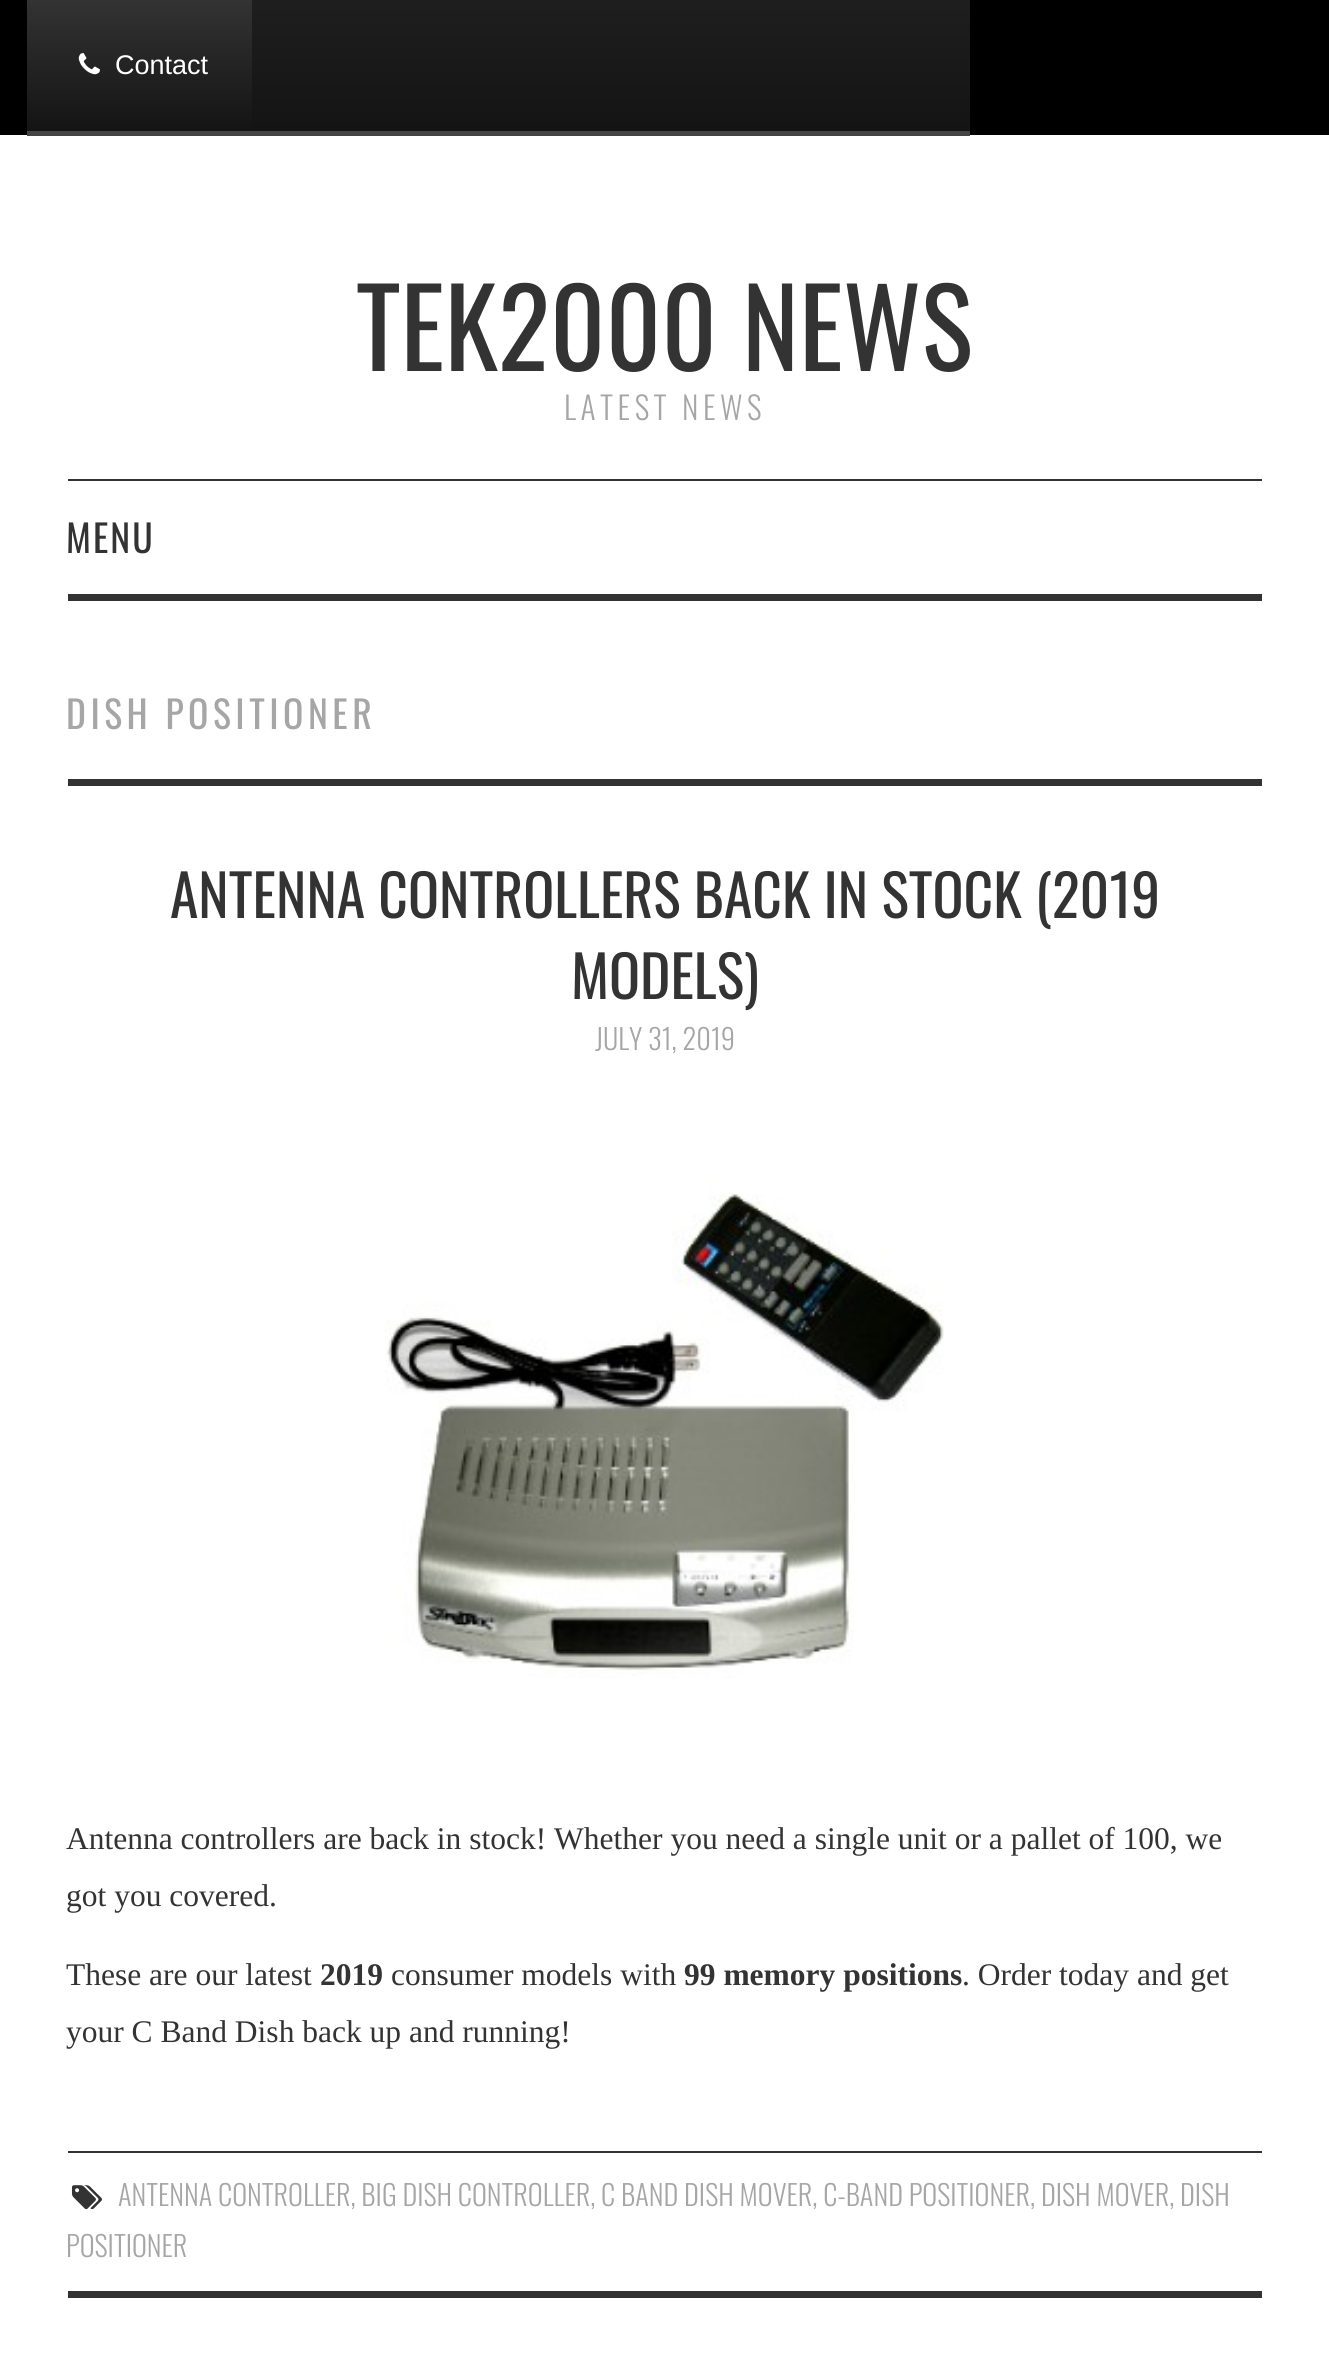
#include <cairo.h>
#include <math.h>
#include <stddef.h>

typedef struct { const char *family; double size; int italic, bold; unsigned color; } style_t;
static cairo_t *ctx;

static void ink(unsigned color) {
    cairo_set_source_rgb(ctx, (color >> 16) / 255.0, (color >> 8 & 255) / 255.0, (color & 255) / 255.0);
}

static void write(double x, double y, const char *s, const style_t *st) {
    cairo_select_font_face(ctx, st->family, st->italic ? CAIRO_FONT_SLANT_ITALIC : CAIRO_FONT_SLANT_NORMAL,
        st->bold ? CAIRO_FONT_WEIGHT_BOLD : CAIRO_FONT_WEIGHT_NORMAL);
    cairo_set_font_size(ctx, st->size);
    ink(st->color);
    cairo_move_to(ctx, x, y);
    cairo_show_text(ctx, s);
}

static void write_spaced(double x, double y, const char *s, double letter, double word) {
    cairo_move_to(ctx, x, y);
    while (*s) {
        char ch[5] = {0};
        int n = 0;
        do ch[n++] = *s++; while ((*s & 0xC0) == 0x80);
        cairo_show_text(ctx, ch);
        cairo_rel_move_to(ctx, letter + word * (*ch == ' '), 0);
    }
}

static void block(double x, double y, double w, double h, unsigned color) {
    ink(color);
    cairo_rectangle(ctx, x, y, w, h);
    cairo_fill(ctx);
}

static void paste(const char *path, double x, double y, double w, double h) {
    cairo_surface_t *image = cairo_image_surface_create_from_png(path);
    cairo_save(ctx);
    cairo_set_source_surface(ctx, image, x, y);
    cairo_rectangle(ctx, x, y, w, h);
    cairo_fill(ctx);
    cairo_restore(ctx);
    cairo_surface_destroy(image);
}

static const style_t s1 = {"Liberation Sans", 27, 0, 0, 0xffffff};
static const style_t s2 = {"Oswald", 108, 0, 0, 0x333333};
static const style_t s3 = {"Oswald", 57.6, 0, 0, 0x333333};
static const style_t s4 = {"Oswald Light", 28.35, 0, 0, 0xa6a6a6};
static const style_t s5 = {"Liberation Serif", 31.5, 0, 0, 0x333333};
static const style_t s6 = {"Liberation Serif", 31.5, 0, 1, 0x333333};

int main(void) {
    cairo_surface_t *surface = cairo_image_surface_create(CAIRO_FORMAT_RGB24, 1329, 2353);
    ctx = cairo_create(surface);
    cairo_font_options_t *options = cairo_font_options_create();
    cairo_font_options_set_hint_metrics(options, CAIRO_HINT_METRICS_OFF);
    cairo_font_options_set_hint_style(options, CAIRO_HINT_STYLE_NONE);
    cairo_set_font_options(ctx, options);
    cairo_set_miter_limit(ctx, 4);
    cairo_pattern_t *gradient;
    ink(0xffffff);
    cairo_paint(ctx);
    block(0, 0, 27, 135, 0x000000);
    gradient = cairo_pattern_create_linear(498, -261, 498, 131);
    cairo_pattern_add_color_stop_rgba(gradient, 0, 0.2, 0.2, 0.2, 1);
    cairo_pattern_add_color_stop_rgba(gradient, 1, 0.078, 0.078, 0.078, 1);
    cairo_set_source(ctx, gradient);
    cairo_pattern_destroy(gradient);
    cairo_rectangle(ctx, 252, 0, 718, 131);
    cairo_fill(ctx);
    block(27, 131, 943, 5, 0x444444);
    gradient = cairo_pattern_create_linear(140, 0, 140, 131);
    cairo_pattern_add_color_stop_rgba(gradient, 0, 0.2, 0.2, 0.2, 1);
    cairo_pattern_add_color_stop_rgba(gradient, 1, 0.078, 0.078, 0.078, 1);
    cairo_set_source(ctx, gradient);
    cairo_pattern_destroy(gradient);
    cairo_rectangle(ctx, 27, 0, 225, 131);
    cairo_fill(ctx);
    paste("pic1.png", 78, 53, 22, 22);
    write(115, 74, "Contact", &s1);
    block(970, 0, 359, 135, 0x000000);
    write(356, 371, "TEK2000 NEWS", &s2);
    cairo_select_font_face(ctx, "Oswald Light", CAIRO_FONT_SLANT_NORMAL, CAIRO_FONT_WEIGHT_NORMAL);
    cairo_set_font_size(ctx, 31.5);
    ink(0xa6a6a6);
    write_spaced(564, 420, "LATEST NEWS", 4.5, 0);
    block(68, 479, 1194, 2, 0x333333);
    block(68, 594, 1194, 7, 0x333333);
    cairo_select_font_face(ctx, "Oswald", CAIRO_FONT_SLANT_NORMAL, CAIRO_FONT_WEIGHT_NORMAL);
    cairo_set_font_size(ctx, 37.75);
    write_spaced(66, 553, "MENU", 2, 0);
    block(68, 779, 1194, 7, 0x333333);
    ink(0xa6a6a6);
    write_spaced(66, 729, "DISH POSITIONER", 4.5, 0);
    write(170, 918, "ANTENNA CONTROLLERS BACK IN STOCK (2019", &s3);
    write(571, 999, "MODELS)", &s3);
    write(595, 1050, "JULY 31, 2019", &s4);
    paste("pic2.png", 385, 1178, 559, 500);
    write(66, 1849, "Antenna controllers are back in stock! Whether you need a single unit or a pallet of 100, we", &s5);
    write(66, 1906, "got you covered.", &s5);
    write(66, 1985, "These are our latest", &s5);
    write(320, 1985, "2019", &s6);
    write(391, 1985, "consumer models with", &s5);
    write(684, 1985, "99 memory positions", &s6);
    write(962, 1985, ". Order today and get", &s5);
    write(66, 2042, "your C Band Dish back up and running!", &s5);
    block(68, 2151, 1194, 2, 0x333333);
    block(68, 2291, 1194, 7, 0x333333);
    paste("pic3.png", 71, 2185, 31, 25);
    write(118, 2206, "ANTENNA CONTROLLER, BIG DISH CONTROLLER, C BAND DISH MOVER, C-BAND POSITIONER, DISH MOVER, DISH", &s4);
    write(66, 2257, "POSITIONER", &s4);
    cairo_surface_write_to_png(surface, "screenshot.png");
    cairo_font_options_destroy(options);
    cairo_destroy(ctx);
    cairo_surface_destroy(surface);
    return 0;
}
